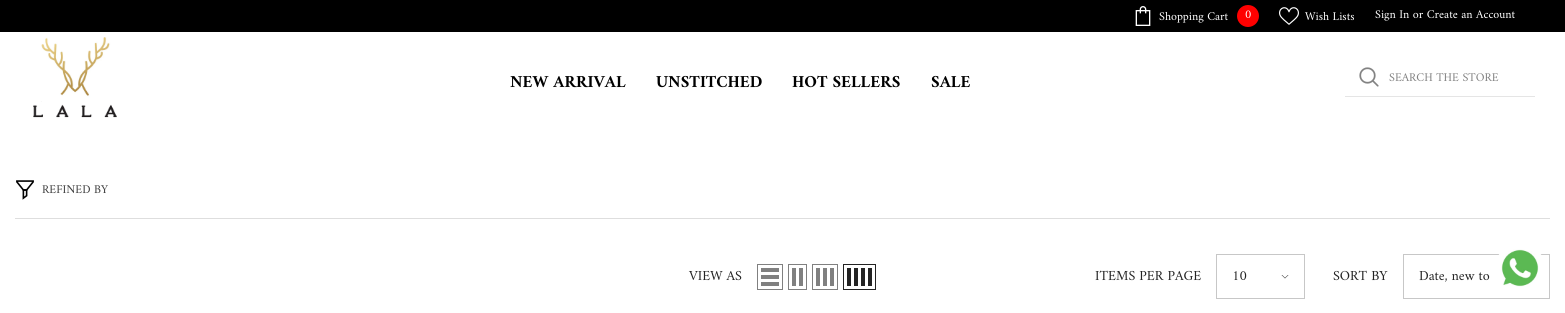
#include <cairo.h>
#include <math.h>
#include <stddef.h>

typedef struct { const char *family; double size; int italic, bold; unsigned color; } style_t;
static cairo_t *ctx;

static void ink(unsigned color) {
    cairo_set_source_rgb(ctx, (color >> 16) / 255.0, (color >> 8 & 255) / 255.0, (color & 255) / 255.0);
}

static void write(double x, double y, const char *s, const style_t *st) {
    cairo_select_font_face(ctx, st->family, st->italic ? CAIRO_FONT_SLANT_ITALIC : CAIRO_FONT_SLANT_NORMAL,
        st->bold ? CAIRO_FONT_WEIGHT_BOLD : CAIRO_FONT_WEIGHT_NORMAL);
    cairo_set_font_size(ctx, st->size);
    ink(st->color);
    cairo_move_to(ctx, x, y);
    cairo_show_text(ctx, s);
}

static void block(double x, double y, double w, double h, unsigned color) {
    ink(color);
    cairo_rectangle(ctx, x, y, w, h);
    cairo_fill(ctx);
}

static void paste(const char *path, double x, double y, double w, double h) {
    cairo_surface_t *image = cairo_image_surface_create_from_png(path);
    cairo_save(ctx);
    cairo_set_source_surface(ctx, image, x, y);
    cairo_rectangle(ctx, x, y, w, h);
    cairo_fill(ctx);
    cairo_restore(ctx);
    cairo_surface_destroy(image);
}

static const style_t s1 = {"Amiri", 12, 0, 0, 0xffffff};
static const style_t s2 = {"Amiri", 17, 0, 1, 0x000000};
static const style_t s3 = {"Amiri", 12, 0, 0, 0x828282};
static const style_t s4 = {"Amiri", 12, 0, 0, 0x3c3c3c};
static const style_t s5 = {"Amiri", 14, 0, 0, 0x232323};

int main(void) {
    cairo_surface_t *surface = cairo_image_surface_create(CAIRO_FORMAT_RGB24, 1565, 313);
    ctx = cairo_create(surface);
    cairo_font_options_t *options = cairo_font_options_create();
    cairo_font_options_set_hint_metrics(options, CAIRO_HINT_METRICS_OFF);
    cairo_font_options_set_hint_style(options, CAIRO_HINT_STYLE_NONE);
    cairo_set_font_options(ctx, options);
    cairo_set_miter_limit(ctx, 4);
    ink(0xffffff);
    cairo_paint(ctx);
    block(0, 0, 1565, 32, 0x000000);
    paste("pic1.png", 1135, 6, 16, 20);
    write(1159, 20, "Shopping Cart", &s1);
    ink(0xff0000);
    cairo_new_path(ctx);
    cairo_arc(ctx, 1248, 16, 11, 0, 2 * M_PI);
    cairo_fill(ctx);
    write(1245, 18, "0", &s1);
    paste("pic2.png", 1279, 7, 20, 18);
    write(1305, 20, "Wish Lists", &s1);
    write(1375, 18, "Sign In or Create an Account", &s1);
    paste("pic3.png", 33, 37, 84, 81);
    write(510, 87, "NEW ARRIVAL", &s2);
    write(656, 87, "UNSTITCHED", &s2);
    write(792, 87, "HOT SELLERS", &s2);
    write(931, 87, "SALE", &s2);
    paste("pic4.png", 1359, 67, 20, 20);
    block(1345, 96, 190, 1, 0xe5e5e5);
    write(1389, 81, "SEARCH THE STORE", &s3);
    paste("pic5.png", 16, 180, 18, 20);
    write(42, 193, "REFINED BY", &s4);
    block(15, 218, 1535, 1, 0xdedede);
    write(689, 280, "VIEW AS", &s5);
    cairo_rectangle(ctx, 757.5, 264.5, 25, 25);
    ink(0x808080);
    cairo_set_line_width(ctx, 1);
    cairo_stroke(ctx);
    block(761, 282, 18, 4, 0x808080);
    block(761, 275, 18, 4, 0x808080);
    block(761, 268, 18, 4, 0x808080);
    cairo_rectangle(ctx, 788.5, 264.5, 18, 25);
    cairo_stroke(ctx);
    block(799, 268, 4, 18, 0x808080);
    block(792, 268, 4, 18, 0x808080);
    cairo_rectangle(ctx, 812.5, 264.5, 25, 25);
    cairo_stroke(ctx);
    block(830, 268, 4, 18, 0x808080);
    block(823, 268, 4, 18, 0x808080);
    block(816, 268, 4, 18, 0x808080);
    cairo_rectangle(ctx, 843.5, 264.5, 32, 25);
    ink(0x232323);
    cairo_stroke(ctx);
    block(868, 268, 4, 18, 0x232323);
    block(861, 268, 4, 18, 0x232323);
    block(854, 268, 4, 18, 0x232323);
    block(847, 268, 4, 18, 0x232323);
    write(1095, 280, "ITEMS PER PAGE", &s5);
    cairo_rectangle(ctx, 1216.5, 254.5, 88, 44);
    ink(0xc7c7c7);
    cairo_stroke(ctx);
    write(1232, 280, "10", &s5);
    paste("pic6.png", 1281, 275, 8, 4);
    write(1333, 280, "SORT BY", &s5);
    cairo_rectangle(ctx, 1403.5, 254.5, 146, 44);
    ink(0xc7c7c7);
    cairo_stroke(ctx);
    write(1419, 280, "Date, new to", &s5);
    paste("pic7.png", 1495, 249, 47, 38);
    cairo_surface_write_to_png(surface, "screenshot.png");
    cairo_font_options_destroy(options);
    cairo_destroy(ctx);
    cairo_surface_destroy(surface);
    return 0;
}
